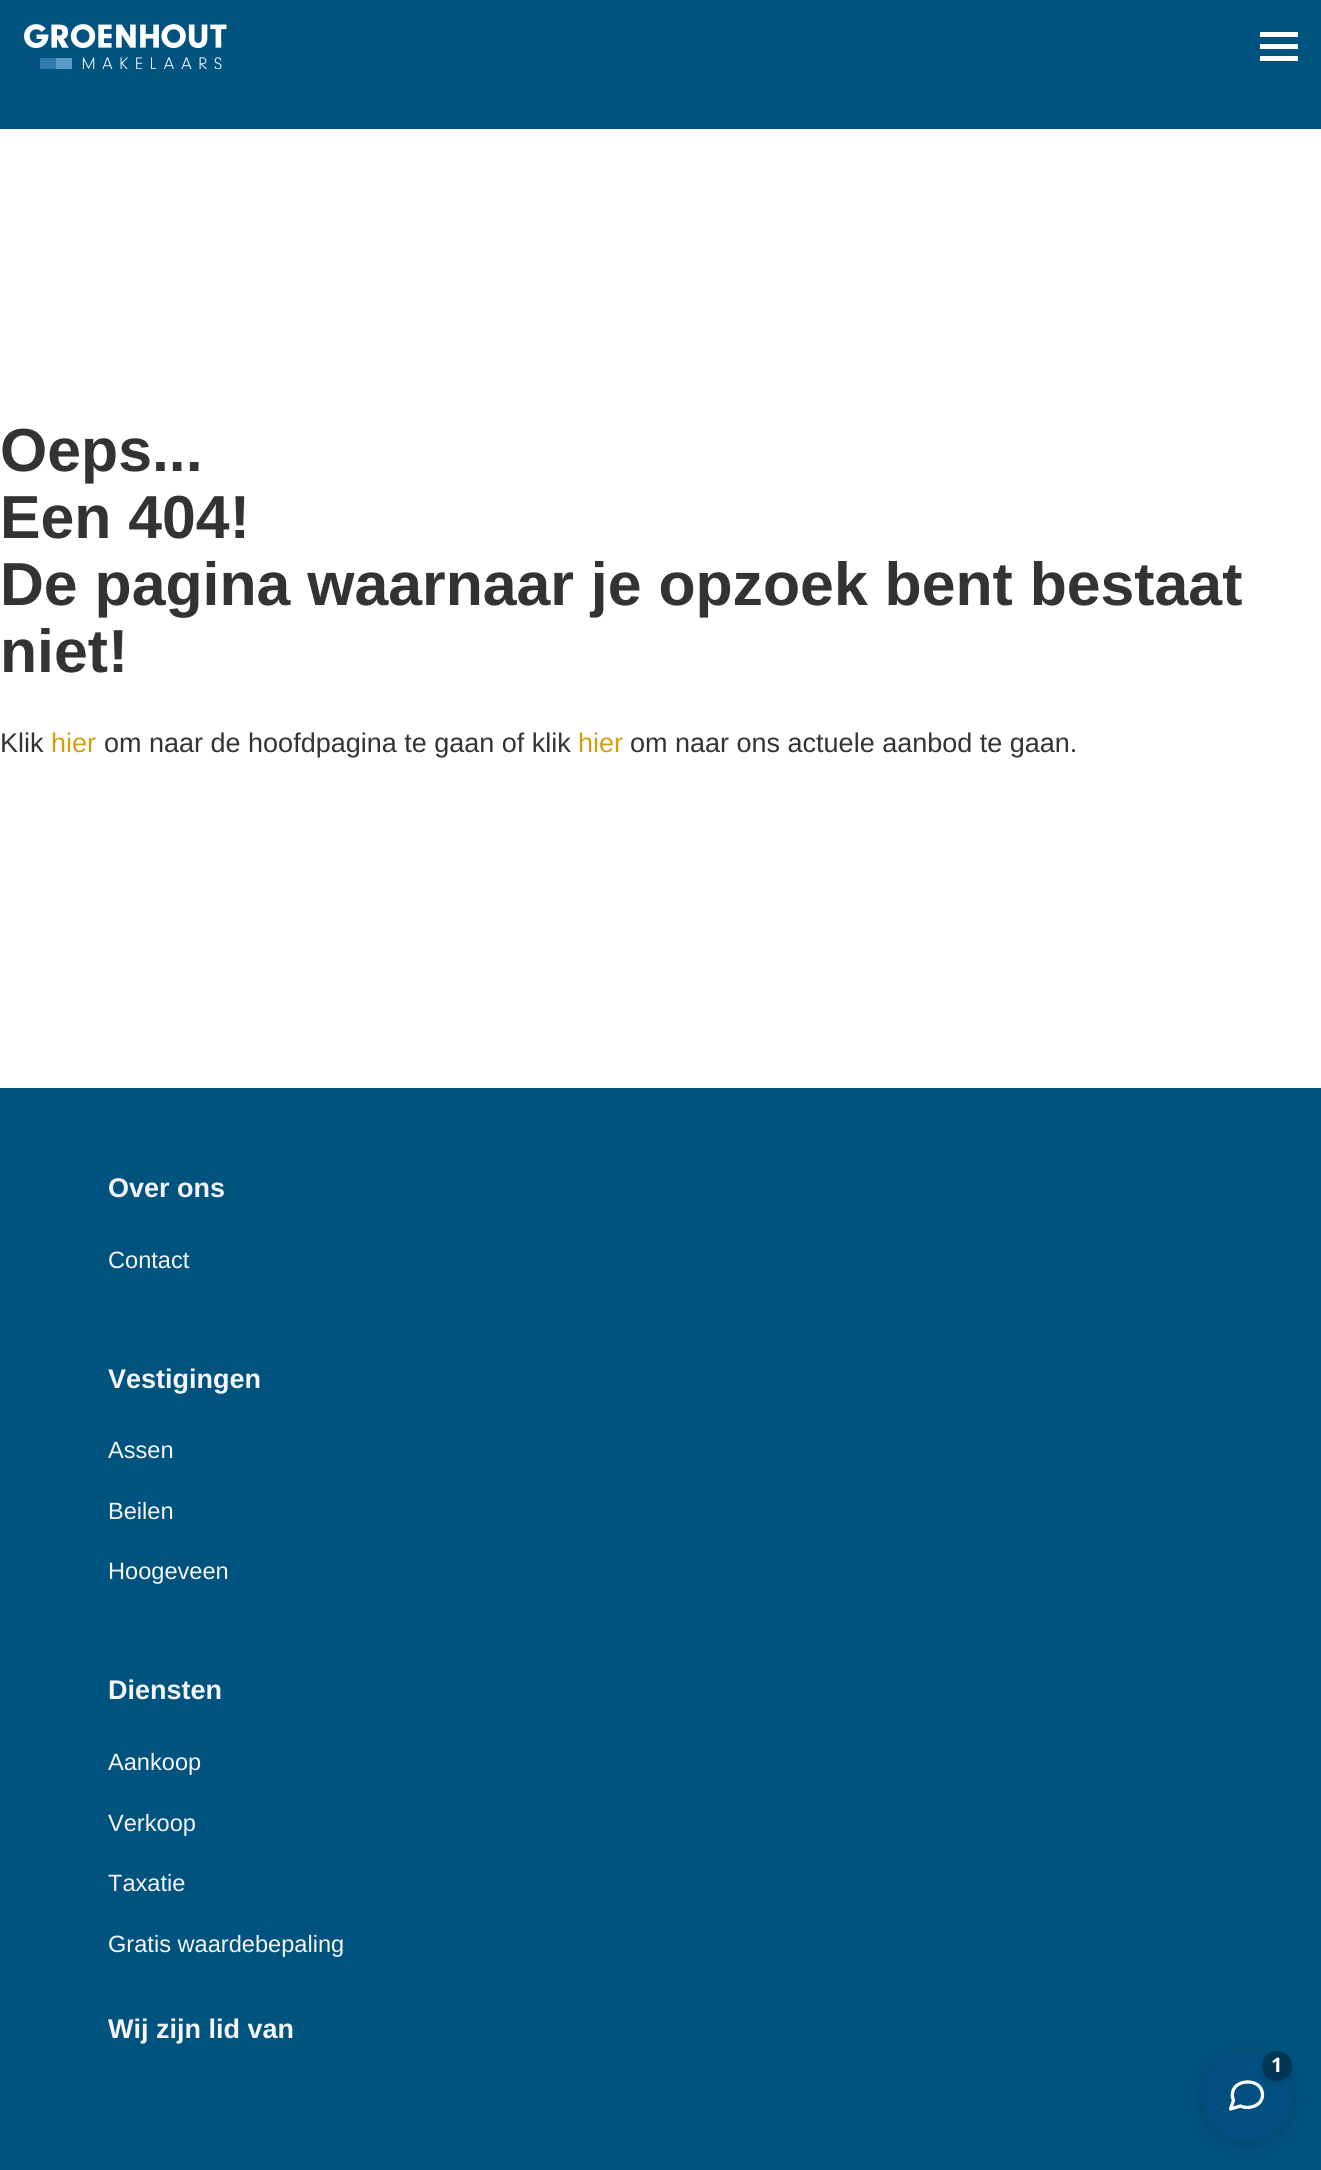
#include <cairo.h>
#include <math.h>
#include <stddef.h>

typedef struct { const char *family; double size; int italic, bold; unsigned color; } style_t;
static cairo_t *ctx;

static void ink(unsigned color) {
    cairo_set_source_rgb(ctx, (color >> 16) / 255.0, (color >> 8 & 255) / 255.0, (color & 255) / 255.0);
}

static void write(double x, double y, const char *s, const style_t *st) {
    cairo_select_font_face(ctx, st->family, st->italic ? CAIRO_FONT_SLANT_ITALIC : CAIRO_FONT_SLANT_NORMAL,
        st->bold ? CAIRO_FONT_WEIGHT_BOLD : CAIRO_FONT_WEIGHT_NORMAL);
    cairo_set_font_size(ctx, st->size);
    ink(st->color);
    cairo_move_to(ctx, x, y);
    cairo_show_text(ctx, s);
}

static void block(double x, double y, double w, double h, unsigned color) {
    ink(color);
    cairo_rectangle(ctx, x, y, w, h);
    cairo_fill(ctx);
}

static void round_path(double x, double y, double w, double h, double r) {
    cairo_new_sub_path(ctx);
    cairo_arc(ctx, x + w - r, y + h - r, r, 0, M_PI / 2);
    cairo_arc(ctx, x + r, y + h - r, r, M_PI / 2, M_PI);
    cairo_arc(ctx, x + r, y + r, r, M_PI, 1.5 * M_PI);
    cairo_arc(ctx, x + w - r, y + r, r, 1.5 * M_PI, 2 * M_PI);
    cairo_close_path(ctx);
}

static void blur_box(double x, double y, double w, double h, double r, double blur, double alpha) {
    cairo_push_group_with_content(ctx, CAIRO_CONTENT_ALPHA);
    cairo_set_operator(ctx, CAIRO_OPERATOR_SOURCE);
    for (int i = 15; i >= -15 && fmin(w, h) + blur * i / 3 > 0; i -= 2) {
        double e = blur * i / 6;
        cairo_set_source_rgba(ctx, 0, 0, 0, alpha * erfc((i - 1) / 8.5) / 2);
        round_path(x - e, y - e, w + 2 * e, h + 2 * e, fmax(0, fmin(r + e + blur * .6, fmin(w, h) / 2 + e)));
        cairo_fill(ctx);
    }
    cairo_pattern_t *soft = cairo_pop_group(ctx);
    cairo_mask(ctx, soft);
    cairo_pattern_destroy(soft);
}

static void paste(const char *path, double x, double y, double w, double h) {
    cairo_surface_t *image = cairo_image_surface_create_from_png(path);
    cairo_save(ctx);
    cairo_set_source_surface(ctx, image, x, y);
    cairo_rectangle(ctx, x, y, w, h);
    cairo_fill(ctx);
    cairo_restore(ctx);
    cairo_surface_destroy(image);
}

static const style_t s1 = {"Liberation Sans", 60.75, 0, 1, 0x333333};
static const style_t s2 = {"Liberation Sans", 27, 0, 0, 0x333333};
static const style_t s3 = {"Liberation Sans", 27, 0, 0, 0xd29f13};
static const style_t s4 = {"Liberation Sans", 27, 0, 1, 0xf5f5f8};
static const style_t s5 = {"Liberation Sans", 23.6, 0, 0, 0xf5f5f8};
static const style_t s6 = {"Noto Sans", 20, 0, 1, 0xffffff};

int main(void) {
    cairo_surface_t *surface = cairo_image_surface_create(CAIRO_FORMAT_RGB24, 1321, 2170);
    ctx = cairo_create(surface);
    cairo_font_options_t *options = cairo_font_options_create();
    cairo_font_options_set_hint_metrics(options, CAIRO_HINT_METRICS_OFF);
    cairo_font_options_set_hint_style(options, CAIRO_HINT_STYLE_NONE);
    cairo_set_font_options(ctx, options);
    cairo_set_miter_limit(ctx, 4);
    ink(0xffffff);
    cairo_paint(ctx);
    block(0, 0, 1321, 129, 0x00537e);
    paste("pic1.png", 24, 24, 203, 45);
    block(1260, 32, 38, 5, 0xffffff);
    block(1260, 44, 38, 5, 0xffffff);
    block(1260, 56, 38, 5, 0xffffff);
    write(0, 471, "Oeps...", &s1);
    write(0, 538, "Een 404!", &s1);
    write(0, 605, "De pagina waarnaar je opzoek bent bestaat", &s1);
    write(0, 672, "niet!", &s1);
    write(0, 752, "Klik", &s2);
    write(51, 752, "hier", &s3);
    write(104, 752, "om naar de hoofdpagina te gaan of klik", &s2);
    write(578, 752, "hier", &s3);
    write(630, 752, "om naar ons actuele aanbod te gaan.", &s2);
    block(0, 1088, 1321, 1082, 0x00537e);
    write(108, 1197, "Over ons", &s4);
    write(108, 1268, "Contact", &s5);
    write(108, 1388, "Vestigingen", &s4);
    write(108, 1458, "Assen", &s5);
    write(108, 1519, "Beilen", &s5);
    write(108, 1579, "Hoogeveen", &s5);
    write(108, 1699, "Diensten", &s4);
    write(108, 1770, "Aankoop", &s5);
    write(108, 1831, "Verkoop", &s5);
    write(108, 1891, "Taxatie", &s5);
    write(108, 1952, "Gratis waardebepaling", &s5);
    write(108, 2038, "Wij zijn lid van", &s4);
    ink(0x000000);
    blur_box(1202, 2054, 90, 90, 45, 9, 0.15);
    ink(0x004f80);
    cairo_arc(ctx, 1247, 2096, 45, 0, 2 * M_PI);
    cairo_fill(ctx);
    cairo_new_path(ctx);
    cairo_move_to(ctx, 1262.5, 2095);
    cairo_curve_to(ctx, 1262.5, 2105.5, 1249, 2110, 1240.5, 2106);
    cairo_line_to(ctx, 1230.5, 2109);
    cairo_line_to(ctx, 1233.5, 2100.5);
    cairo_curve_to(ctx, 1232.5, 2098, 1232, 2095.5, 1232.5, 2093);
    cairo_curve_to(ctx, 1234, 2081.5, 1250.5, 2079, 1258.5, 2085.5);
    cairo_curve_to(ctx, 1261, 2088, 1262.5, 2091, 1262.5, 2095);
    cairo_close_path(ctx);
    ink(0xffffff);
    cairo_set_line_width(ctx, 3.3);
    cairo_set_line_cap(ctx, CAIRO_LINE_CAP_ROUND);
    cairo_set_line_join(ctx, CAIRO_LINE_JOIN_ROUND);
    cairo_stroke(ctx);
    ink(0x000000);
    blur_box(1262, 2054, 30, 30, 15, 3, 0.1);
    ink(0x003555);
    cairo_arc(ctx, 1277, 2066, 15, 0, 2 * M_PI);
    cairo_fill(ctx);
    write(1271, 2072, "1", &s6);
    cairo_surface_write_to_png(surface, "screenshot.png");
    cairo_font_options_destroy(options);
    cairo_destroy(ctx);
    cairo_surface_destroy(surface);
    return 0;
}
